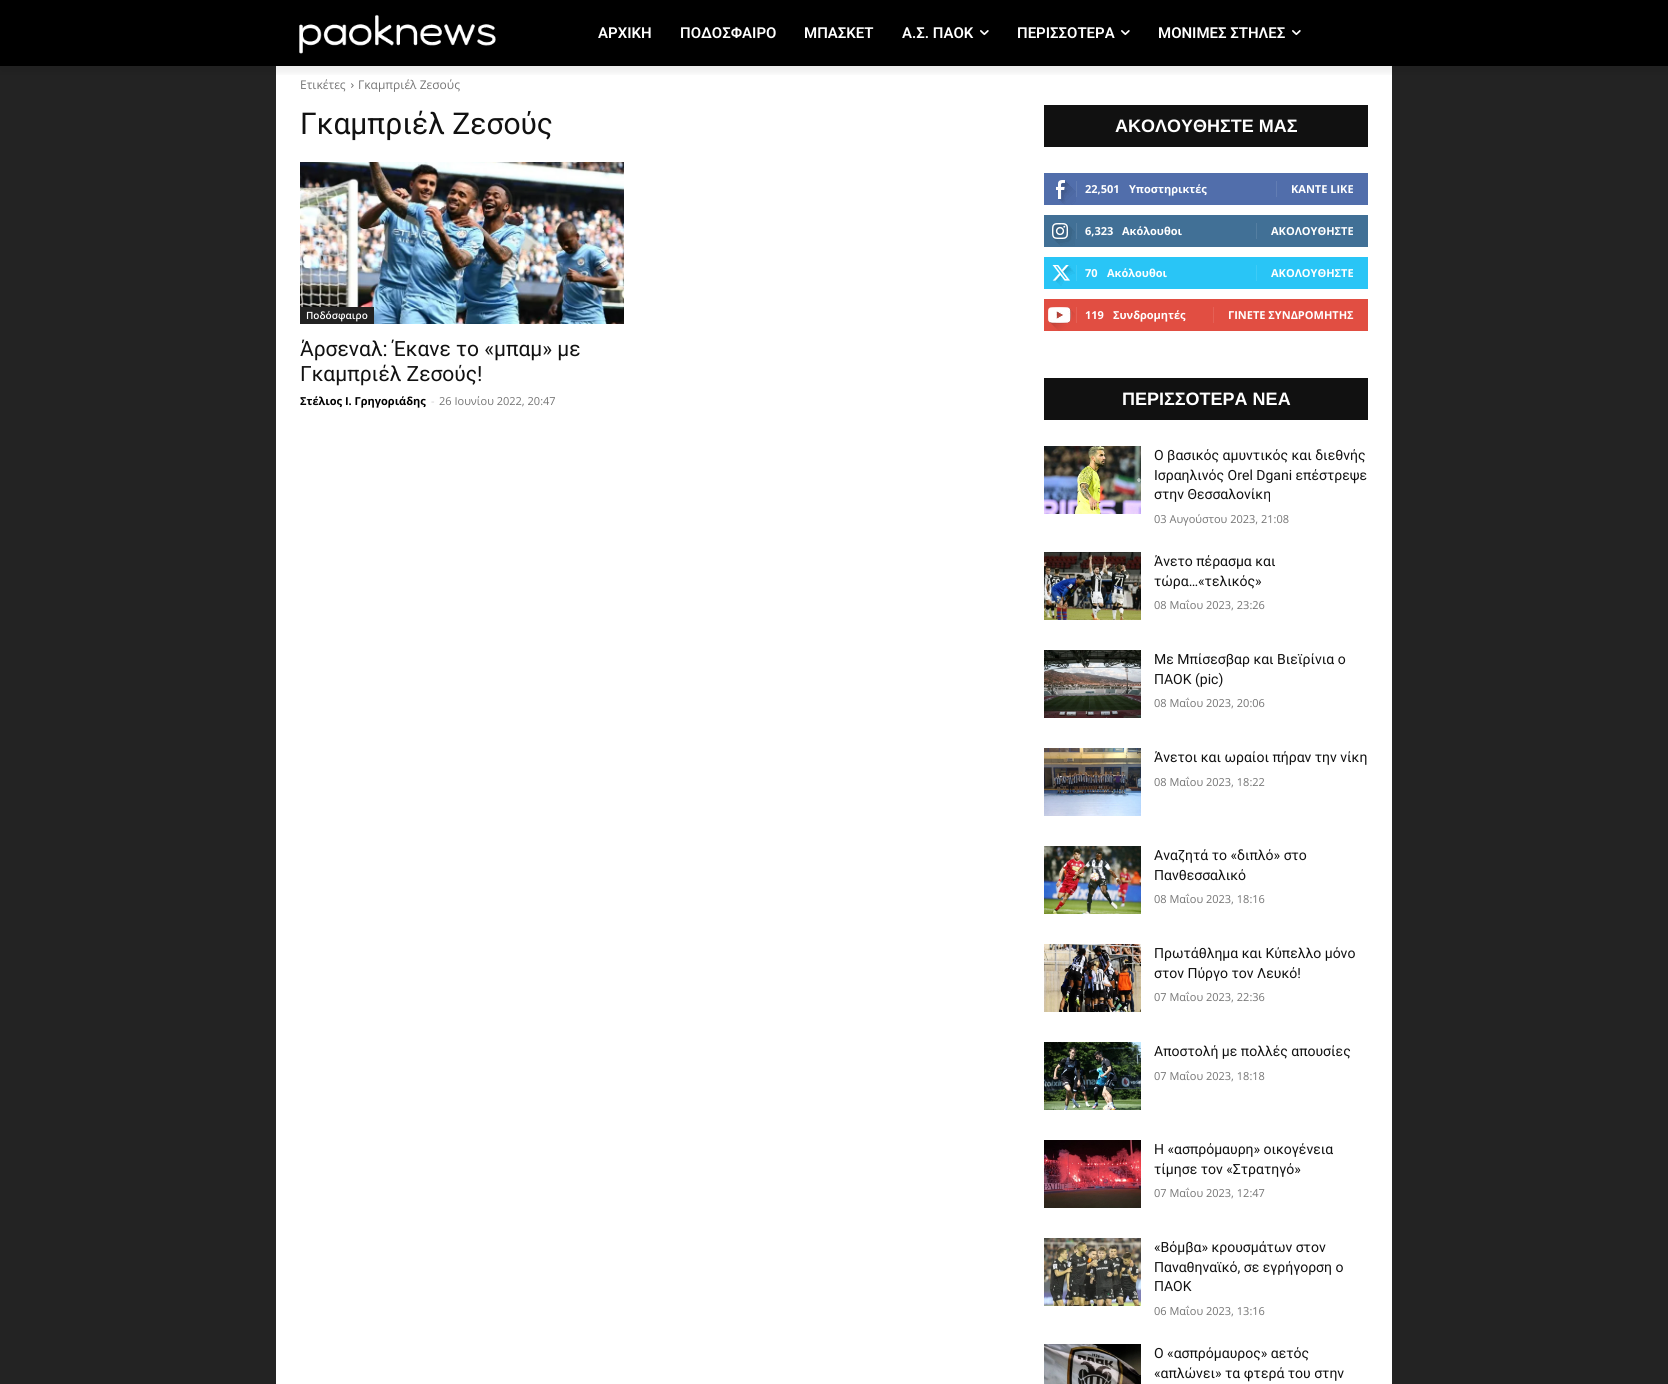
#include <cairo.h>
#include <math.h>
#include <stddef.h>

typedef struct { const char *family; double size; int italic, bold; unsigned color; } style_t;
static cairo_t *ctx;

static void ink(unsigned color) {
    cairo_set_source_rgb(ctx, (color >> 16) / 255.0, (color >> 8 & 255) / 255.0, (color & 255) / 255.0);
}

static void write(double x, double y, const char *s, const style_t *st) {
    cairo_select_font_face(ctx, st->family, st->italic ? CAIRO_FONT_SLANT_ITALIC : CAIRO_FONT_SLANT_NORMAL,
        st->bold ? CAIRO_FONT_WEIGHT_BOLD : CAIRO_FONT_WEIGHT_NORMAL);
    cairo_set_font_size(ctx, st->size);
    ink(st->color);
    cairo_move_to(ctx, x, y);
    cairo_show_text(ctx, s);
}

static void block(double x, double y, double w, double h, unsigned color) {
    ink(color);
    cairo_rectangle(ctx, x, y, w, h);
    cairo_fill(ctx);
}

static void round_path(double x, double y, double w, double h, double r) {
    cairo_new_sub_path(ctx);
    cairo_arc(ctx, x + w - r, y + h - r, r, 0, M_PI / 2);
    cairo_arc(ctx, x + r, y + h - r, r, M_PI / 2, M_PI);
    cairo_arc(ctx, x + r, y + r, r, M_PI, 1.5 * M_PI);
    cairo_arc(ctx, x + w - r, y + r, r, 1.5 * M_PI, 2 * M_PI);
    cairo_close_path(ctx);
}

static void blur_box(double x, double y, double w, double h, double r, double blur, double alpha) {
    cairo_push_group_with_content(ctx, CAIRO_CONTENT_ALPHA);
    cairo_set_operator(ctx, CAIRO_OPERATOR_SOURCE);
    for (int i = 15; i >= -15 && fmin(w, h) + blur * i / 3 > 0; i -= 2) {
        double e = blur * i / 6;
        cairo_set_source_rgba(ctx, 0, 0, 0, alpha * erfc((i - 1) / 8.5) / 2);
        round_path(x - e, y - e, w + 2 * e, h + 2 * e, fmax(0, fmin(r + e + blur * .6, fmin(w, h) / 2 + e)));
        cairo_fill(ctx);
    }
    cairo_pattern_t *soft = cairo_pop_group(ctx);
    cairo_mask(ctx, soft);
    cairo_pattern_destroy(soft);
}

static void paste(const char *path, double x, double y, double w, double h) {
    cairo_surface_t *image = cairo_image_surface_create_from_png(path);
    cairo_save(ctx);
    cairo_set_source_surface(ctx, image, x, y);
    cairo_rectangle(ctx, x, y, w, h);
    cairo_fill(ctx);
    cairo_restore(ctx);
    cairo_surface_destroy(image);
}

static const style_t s1 = {"Roboto SemiBold", 15, 0, 0, 0xffffff};
static const style_t s2 = {"Open Sans", 12, 0, 0, 0x747474};
static const style_t s3 = {"Roboto", 30, 0, 0, 0x111111};
static const style_t s4 = {"Open Sans SemiBold", 10, 0, 0, 0xffffff};
static const style_t s5 = {"Roboto", 21, 0, 0, 0x111111};
static const style_t s6 = {"Open Sans", 11, 0, 1, 0x000000};
static const style_t s7 = {"Open Sans", 11, 0, 0, 0xcccccc};
static const style_t s8 = {"Open Sans", 11, 0, 0, 0x747474};
static const style_t s9 = {"Liberation Sans", 18, 0, 1, 0xffffff};
static const style_t s10 = {"Open Sans", 11, 0, 1, 0xffffff};
static const style_t s11 = {"Roboto", 14, 0, 0, 0x111111};

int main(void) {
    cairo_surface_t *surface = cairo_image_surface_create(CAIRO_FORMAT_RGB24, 1668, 1384);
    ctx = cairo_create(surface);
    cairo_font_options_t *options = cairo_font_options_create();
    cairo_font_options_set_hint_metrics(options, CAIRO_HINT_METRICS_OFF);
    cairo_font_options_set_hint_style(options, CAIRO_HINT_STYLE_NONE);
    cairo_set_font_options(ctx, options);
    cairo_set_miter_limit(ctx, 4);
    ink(0x232323);
    cairo_paint(ctx);
    block(0, 0, 1668, 66, 0x000000);
    paste("pic1.png", 299, 14, 197, 40);
    block(276, 66, 1116, 1318, 0xffffff);
    paste("pic3.png", 351, 83, 3, 5);
    cairo_save(ctx);
    cairo_rectangle(ctx, 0, 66, 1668, 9);
    cairo_clip(ctx);
    ink(0x000000);
    blur_box(0, 6, 1668, 66, 0, 4, 0.08);
    cairo_restore(ctx);
    write(598, 38, "ΑΡΧΙΚΗ", &s1);
    write(680, 38, "ΠΟΔΟΣΦΑΙΡΟ", &s1);
    write(804, 38, "ΜΠΑΣΚΕΤ", &s1);
    write(902, 38, "Α.Σ. ΠAOK", &s1);
    paste("pic2.png", 980, 30, 9, 6);
    write(1017, 38, "ΠΕΡΙΣΣΟΤΕΡΑ", &s1);
    paste("pic2.png", 1121, 30, 9, 6);
    write(1158, 38, "ΜΟΝΙΜΕΣ ΣΤΗΛΕΣ", &s1);
    paste("pic2.png", 1292, 30, 9, 6);
    write(300, 89, "Ετικέτες", &s2);
    write(358, 89, "Γκαμπριέλ Ζεσούς", &s2);
    write(300, 134, "Γκαμπριέλ Ζεσούς", &s3);
    paste("pic4.png", 300, 162, 324, 162);
    block(300, 307, 74, 17, 0x222222);
    write(306, 319, "Ποδόσφαιρο", &s4);
    write(300, 356, "Άρσεναλ: Έκανε το «μπαμ» με", &s5);
    write(300, 381, "Γκαμπριέλ Ζεσούς!", &s5);
    write(300, 405, "Στέλιος Ι. Γρηγοριάδης", &s6);
    write(431, 405, "-", &s7);
    write(439, 405, "26 Ιουνίου 2022, 20:47", &s8);
    block(1044, 105, 324, 42, 0x111111);
    write(1115, 132, "ΑΚΟΛΟΥΘΗΣΤΕ ΜΑΣ", &s9);
    block(1044, 173, 324, 32, 0x516eab);
    paste("pic5.png", 1056, 180, 20, 25);
    block(1076, 181, 1, 16, 0x627db3);
    write(1085, 193, "22,501", &s10);
    write(1129, 193, "Υποστηρικτές", &s10);
    block(1276, 181, 1, 16, 0x627db3);
    write(1291, 193, "ΚΑΝΤΕ LIKE", &s10);
    block(1044, 215, 324, 32, 0x417096);
    paste("pic6.png", 1052, 223, 23, 23);
    block(1076, 223, 1, 16, 0x547ea1);
    write(1085, 235, "6,323", &s10);
    write(1122, 235, "Ακόλουθοι", &s10);
    block(1256, 223, 1, 16, 0x547ea1);
    write(1271, 235, "ΑΚΟΛΟΥΘΗΣΤΕ", &s10);
    block(1044, 257, 324, 32, 0x29c5f6);
    paste("pic7.png", 1052, 265, 23, 21);
    block(1076, 265, 1, 16, 0x3ecbf7);
    write(1085, 277, "70", &s10);
    write(1107, 277, "Ακόλουθοι", &s10);
    block(1256, 265, 1, 16, 0x3ecbf7);
    write(1271, 277, "ΑΚΟΛΟΥΘΗΣΤΕ", &s10);
    block(1044, 299, 324, 32, 0xe14e42);
    paste("pic8.png", 1048, 307, 27, 24);
    block(1076, 307, 1, 16, 0xe46055);
    write(1085, 319, "119", &s10);
    write(1113, 319, "Συνδρομητές", &s10);
    block(1213, 307, 1, 16, 0xe46055);
    write(1228, 319, "ΓΙΝΕΤΕ ΣΥΝΔΡΟΜΗΤΗΣ", &s10);
    block(1044, 378, 324, 42, 0x111111);
    write(1122, 405, "ΠΕΡΙΣΣΟΤΕΡΑ ΝΕΑ", &s9);
    paste("pic9.png", 1044, 446, 97, 68);
    write(1154, 460, "Ο βασικός αμυντικός και διεθνής", &s11);
    write(1154, 480, "Ισραηλινός Orel Dgani επέστρεψε", &s11);
    write(1154, 499, "στην Θεσσαλονίκη", &s11);
    write(1154, 523, "03 Αυγούστου 2023, 21:08", &s8);
    paste("pic10.png", 1044, 552, 97, 68);
    write(1154, 566, "Άνετο πέρασμα και", &s11);
    write(1154, 586, "τώρα…«τελικός»", &s11);
    write(1154, 609, "08 Μαΐου 2023, 23:26", &s8);
    paste("pic11.png", 1044, 650, 97, 68);
    write(1154, 664, "Με Μπίσεσβαρ και Βιεϊρίνια ο", &s11);
    write(1154, 684, "ΠΑΟΚ (pic)", &s11);
    write(1154, 707, "08 Μαΐου 2023, 20:06", &s8);
    paste("pic12.png", 1044, 748, 97, 68);
    write(1154, 762, "Άνετοι και ωραίοι πήραν την νίκη", &s11);
    write(1154, 786, "08 Μαΐου 2023, 18:22", &s8);
    paste("pic13.png", 1044, 846, 97, 68);
    write(1154, 860, "Αναζητά το «διπλό» στο", &s11);
    write(1154, 880, "Πανθεσσαλικό", &s11);
    write(1154, 903, "08 Μαΐου 2023, 18:16", &s8);
    paste("pic14.png", 1044, 944, 97, 68);
    write(1154, 958, "Πρωτάθλημα και Κύπελλο μόνο", &s11);
    write(1154, 978, "στον Πύργο τον Λευκό!", &s11);
    write(1154, 1001, "07 Μαΐου 2023, 22:36", &s8);
    paste("pic15.png", 1044, 1042, 97, 68);
    write(1154, 1056, "Αποστολή με πολλές απουσίες", &s11);
    write(1154, 1080, "07 Μαΐου 2023, 18:18", &s8);
    paste("pic16.png", 1044, 1140, 97, 68);
    write(1154, 1154, "Η «ασπρόμαυρη» οικογένεια", &s11);
    write(1154, 1174, "τίμησε τον «Στρατηγό»", &s11);
    write(1154, 1197, "07 Μαΐου 2023, 12:47", &s8);
    paste("pic17.png", 1044, 1238, 97, 68);
    write(1154, 1252, "«Βόμβα» κρουσμάτων στον", &s11);
    write(1154, 1272, "Παναθηναϊκό, σε εγρήγορση ο", &s11);
    write(1154, 1291, "ΠΑΟΚ", &s11);
    write(1154, 1315, "06 Μαΐου 2023, 13:16", &s8);
    paste("pic18.png", 1044, 1344, 97, 40);
    write(1154, 1358, "Ο «ασπρόμαυρος» αετός", &s11);
    write(1154, 1378, "«απλώνει» τα φτερά του στην", &s11);
    cairo_surface_write_to_png(surface, "screenshot.png");
    cairo_font_options_destroy(options);
    cairo_destroy(ctx);
    cairo_surface_destroy(surface);
    return 0;
}
